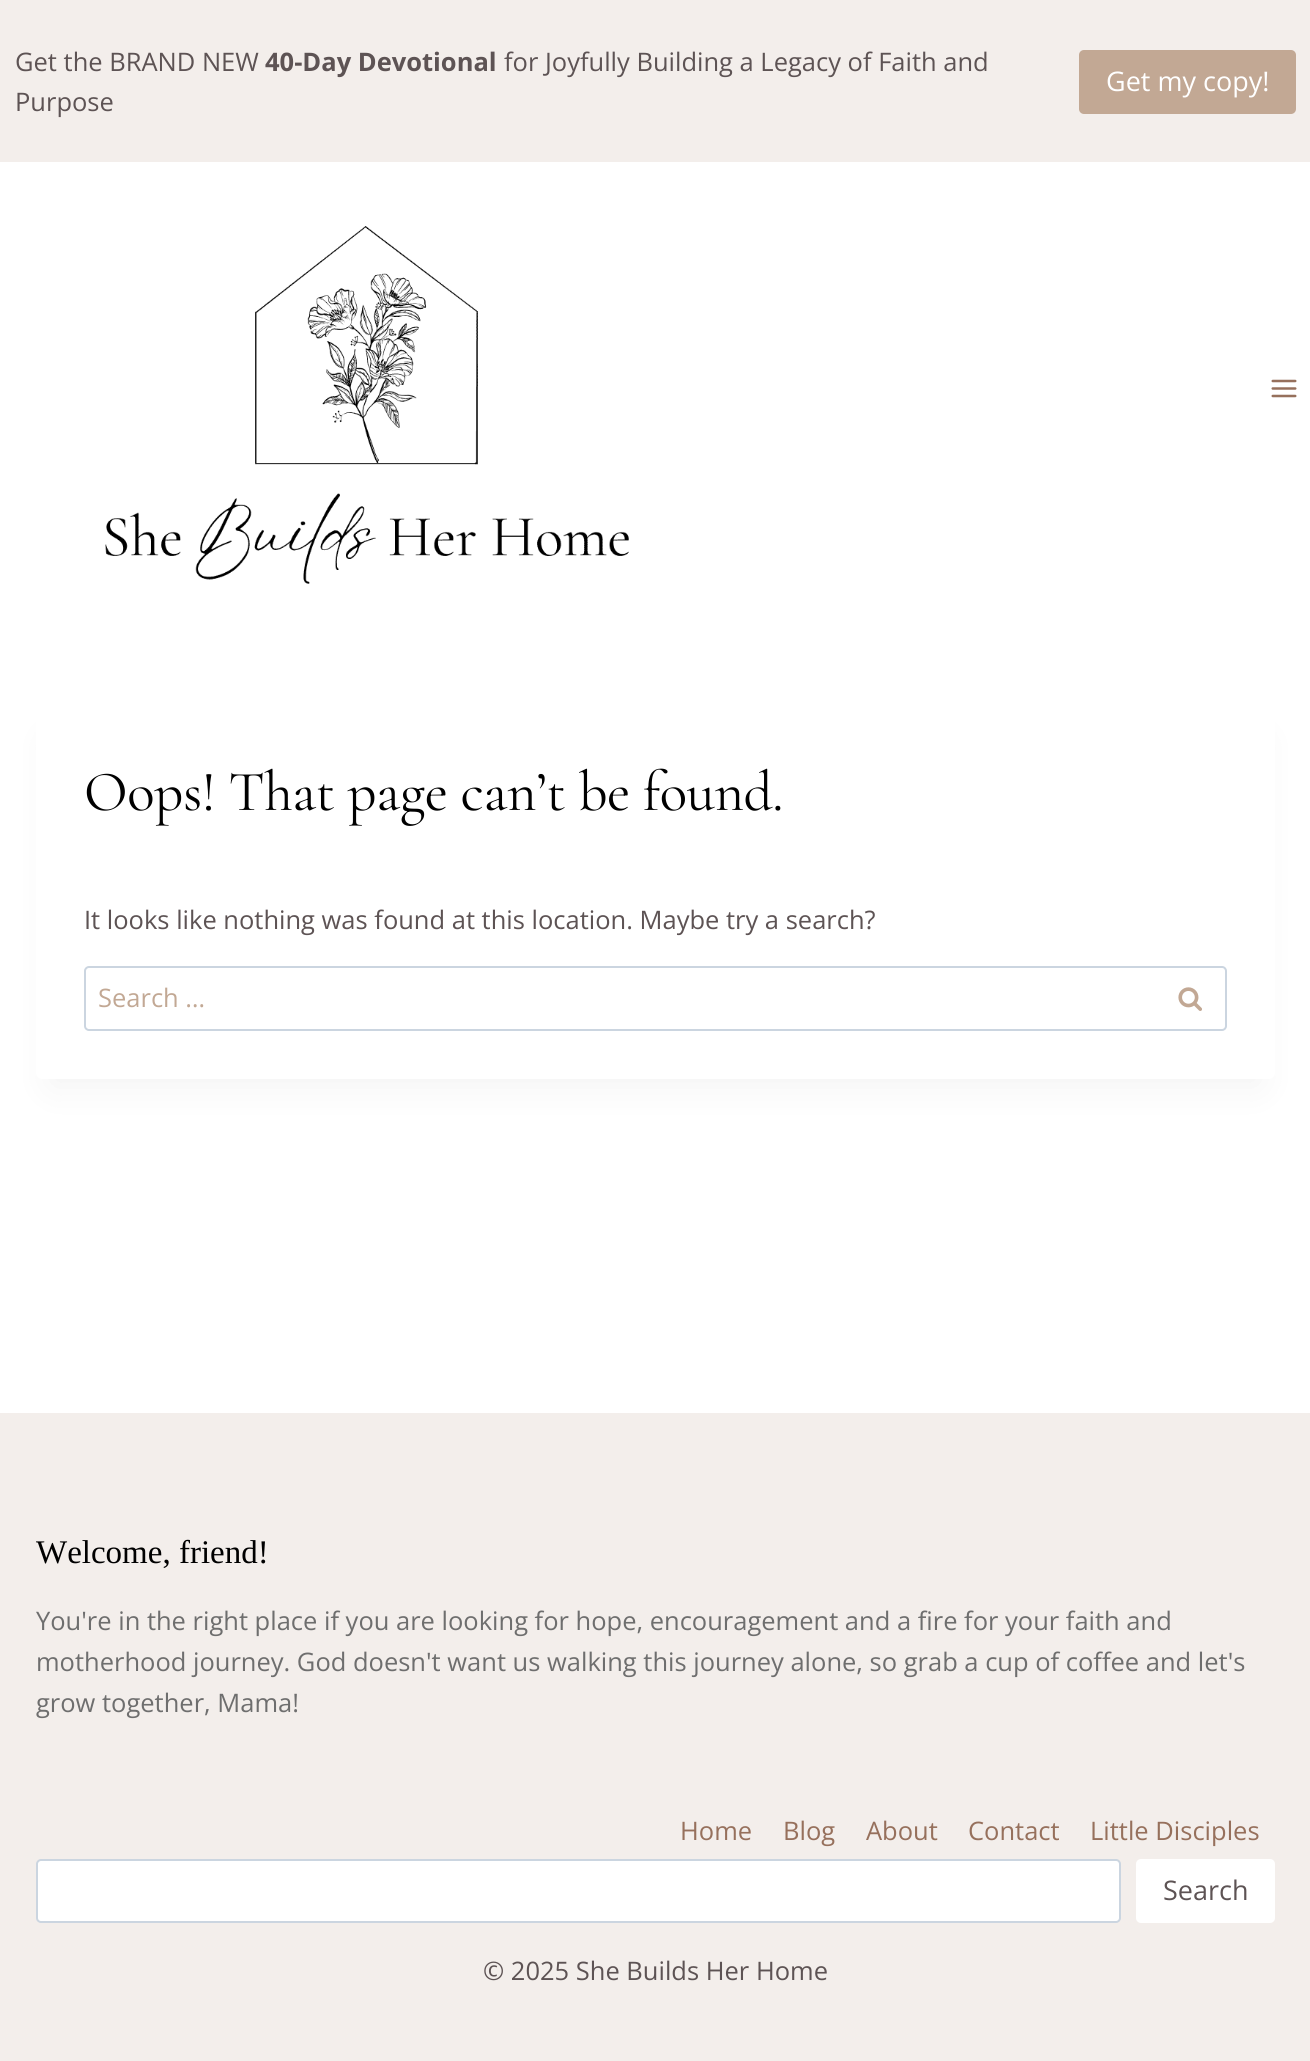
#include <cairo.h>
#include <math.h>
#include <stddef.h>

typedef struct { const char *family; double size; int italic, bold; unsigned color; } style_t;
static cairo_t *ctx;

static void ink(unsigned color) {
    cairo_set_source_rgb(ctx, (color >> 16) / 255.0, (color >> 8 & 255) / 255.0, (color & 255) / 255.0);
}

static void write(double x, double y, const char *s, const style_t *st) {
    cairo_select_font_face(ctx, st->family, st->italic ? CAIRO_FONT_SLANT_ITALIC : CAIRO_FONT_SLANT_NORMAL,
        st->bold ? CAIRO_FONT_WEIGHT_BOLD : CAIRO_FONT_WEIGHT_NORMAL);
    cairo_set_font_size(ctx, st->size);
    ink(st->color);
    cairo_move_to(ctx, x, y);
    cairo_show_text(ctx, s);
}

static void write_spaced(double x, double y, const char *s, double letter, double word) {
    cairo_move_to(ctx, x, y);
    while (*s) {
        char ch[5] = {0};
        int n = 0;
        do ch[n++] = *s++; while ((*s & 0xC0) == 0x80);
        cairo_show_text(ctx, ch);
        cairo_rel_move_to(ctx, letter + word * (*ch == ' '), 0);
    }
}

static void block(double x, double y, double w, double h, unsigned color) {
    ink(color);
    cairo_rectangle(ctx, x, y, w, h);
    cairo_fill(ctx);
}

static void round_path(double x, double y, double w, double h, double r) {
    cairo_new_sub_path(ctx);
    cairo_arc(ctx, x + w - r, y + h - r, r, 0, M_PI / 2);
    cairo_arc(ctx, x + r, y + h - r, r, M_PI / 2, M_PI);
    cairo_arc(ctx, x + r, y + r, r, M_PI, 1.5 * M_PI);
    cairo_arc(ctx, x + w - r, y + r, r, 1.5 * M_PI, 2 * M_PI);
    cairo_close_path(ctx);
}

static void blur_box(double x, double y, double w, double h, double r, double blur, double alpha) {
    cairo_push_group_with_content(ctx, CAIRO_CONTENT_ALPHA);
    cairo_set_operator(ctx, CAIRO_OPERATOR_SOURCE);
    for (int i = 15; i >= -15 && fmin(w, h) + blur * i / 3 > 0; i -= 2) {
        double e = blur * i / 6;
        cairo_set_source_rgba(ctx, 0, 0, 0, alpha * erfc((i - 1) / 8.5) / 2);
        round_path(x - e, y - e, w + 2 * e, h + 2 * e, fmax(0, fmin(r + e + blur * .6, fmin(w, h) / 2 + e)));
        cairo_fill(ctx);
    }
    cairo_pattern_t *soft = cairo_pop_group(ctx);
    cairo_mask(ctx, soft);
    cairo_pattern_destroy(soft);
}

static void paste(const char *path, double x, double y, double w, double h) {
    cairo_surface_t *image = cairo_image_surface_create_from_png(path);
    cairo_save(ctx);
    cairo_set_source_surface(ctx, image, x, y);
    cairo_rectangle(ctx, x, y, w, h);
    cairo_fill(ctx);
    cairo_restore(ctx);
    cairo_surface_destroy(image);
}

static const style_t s1 = {"Open Sans", 25.5, 0, 0, 0x5d5354};
static const style_t s2 = {"Open Sans", 25.5, 0, 1, 0x5d5354};
static const style_t s3 = {"Open Sans", 27, 0, 0, 0xffffff};
static const style_t s4 = {"Open Sans", 25.5, 0, 0, 0xc2a894};
static const style_t s5 = {"Liberation Serif", 33, 0, 0, 0x000000};
static const style_t s6 = {"Open Sans", 25.5, 0, 0, 0x6e6e6e};
static const style_t s7 = {"Open Sans", 25.5, 0, 0, 0x96705c};
static const style_t s8 = {"Open Sans", 27, 0, 0, 0x5d5354};

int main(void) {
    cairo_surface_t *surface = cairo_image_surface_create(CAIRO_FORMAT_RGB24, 1310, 2061);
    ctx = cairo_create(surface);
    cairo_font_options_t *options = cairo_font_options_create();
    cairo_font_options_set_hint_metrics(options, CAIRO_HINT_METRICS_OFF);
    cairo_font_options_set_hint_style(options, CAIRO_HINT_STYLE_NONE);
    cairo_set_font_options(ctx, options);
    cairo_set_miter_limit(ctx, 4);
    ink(0xffffff);
    cairo_paint(ctx);
    block(0, 0, 1310, 162, 0xf3eeeb);
    write(15, 71, "Get the BRAND NEW", &s1);
    write(265, 71, "40-Day Devotional", &s2);
    write(504, 71, "for Joyfully Building a Legacy of Faith and", &s1);
    write(15, 111, "Purpose", &s1);
    ink(0xc2a894);
    round_path(1079, 50, 217, 64, 5);
    cairo_fill(ctx);
    write(1106, 91, "Get my copy!", &s3);
    paste("pic1.png", 105, 226, 524, 358);
    paste("pic2.png", 1271, 379, 26, 19);
    ink(0x000000);
    blur_box(51, 740, 1209, 346, 0, 19, 0.05);
    ink(0xffffff);
    round_path(36, 702, 1239, 377, 6);
    cairo_fill(ctx);
    cairo_select_font_face(ctx, "Cormorant Garamond Light", CAIRO_FONT_SLANT_NORMAL, CAIRO_FONT_WEIGHT_NORMAL);
    cairo_set_font_size(ctx, 57);
    ink(0x000000);
    write_spaced(84, 810, "Oops! That page can’t be found.", -0.4, 0);
    write(84, 929, "It looks like nothing was found at this location. Maybe try a search?", &s1);
    round_path(85, 967, 1141, 63, 4);
    ink(0xcbd5e0);
    cairo_stroke(ctx);
    write(98, 1007, "Search …", &s4);
    paste("pic3.png", 1178, 987, 24, 24);
    block(0, 1413, 1310, 648, 0xf3eeeb);
    write(36, 1563, "Welcome, friend!", &s5);
    write(36, 1630, "You're in the right place if you are looking for hope, encouragement and a fire for your faith and", &s6);
    write(36, 1671, "motherhood journey. God doesn't want us walking this journey alone, so grab a cup of coffee and let's", &s6);
    write(36, 1712, "grow together, Mama!", &s6);
    write(680, 1840, "Home", &s7);
    write(783, 1840, "Blog", &s7);
    write(866, 1840, "About", &s7);
    write(968, 1840, "Contact", &s7);
    write(1090, 1840, "Little Disciples", &s7);
    ink(0xffffff);
    round_path(37, 1860, 1083, 62, 4);
    cairo_fill_preserve(ctx);
    ink(0xcbd5e0);
    cairo_stroke(ctx);
    ink(0xffffff);
    round_path(1136, 1859, 139, 64, 5);
    cairo_fill(ctx);
    write(1163, 1900, "Search", &s8);
    write(483, 1980, "© 2025 She Builds Her Home", &s1);
    cairo_surface_write_to_png(surface, "screenshot.png");
    cairo_font_options_destroy(options);
    cairo_destroy(ctx);
    cairo_surface_destroy(surface);
    return 0;
}
